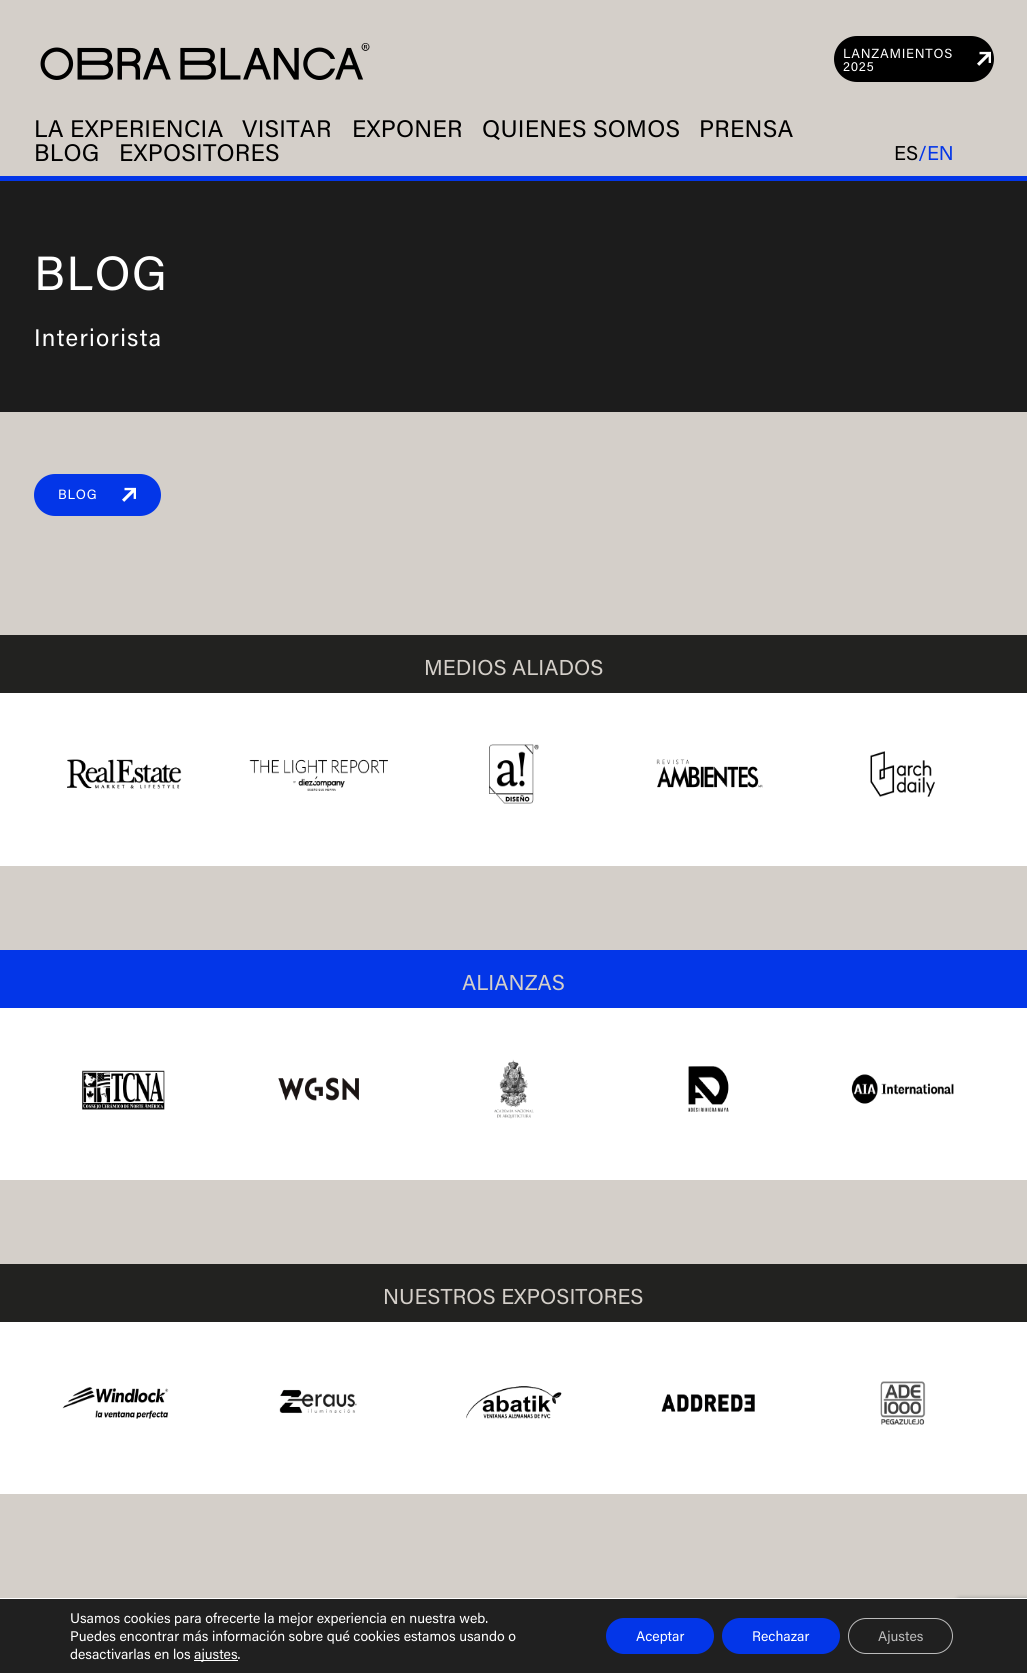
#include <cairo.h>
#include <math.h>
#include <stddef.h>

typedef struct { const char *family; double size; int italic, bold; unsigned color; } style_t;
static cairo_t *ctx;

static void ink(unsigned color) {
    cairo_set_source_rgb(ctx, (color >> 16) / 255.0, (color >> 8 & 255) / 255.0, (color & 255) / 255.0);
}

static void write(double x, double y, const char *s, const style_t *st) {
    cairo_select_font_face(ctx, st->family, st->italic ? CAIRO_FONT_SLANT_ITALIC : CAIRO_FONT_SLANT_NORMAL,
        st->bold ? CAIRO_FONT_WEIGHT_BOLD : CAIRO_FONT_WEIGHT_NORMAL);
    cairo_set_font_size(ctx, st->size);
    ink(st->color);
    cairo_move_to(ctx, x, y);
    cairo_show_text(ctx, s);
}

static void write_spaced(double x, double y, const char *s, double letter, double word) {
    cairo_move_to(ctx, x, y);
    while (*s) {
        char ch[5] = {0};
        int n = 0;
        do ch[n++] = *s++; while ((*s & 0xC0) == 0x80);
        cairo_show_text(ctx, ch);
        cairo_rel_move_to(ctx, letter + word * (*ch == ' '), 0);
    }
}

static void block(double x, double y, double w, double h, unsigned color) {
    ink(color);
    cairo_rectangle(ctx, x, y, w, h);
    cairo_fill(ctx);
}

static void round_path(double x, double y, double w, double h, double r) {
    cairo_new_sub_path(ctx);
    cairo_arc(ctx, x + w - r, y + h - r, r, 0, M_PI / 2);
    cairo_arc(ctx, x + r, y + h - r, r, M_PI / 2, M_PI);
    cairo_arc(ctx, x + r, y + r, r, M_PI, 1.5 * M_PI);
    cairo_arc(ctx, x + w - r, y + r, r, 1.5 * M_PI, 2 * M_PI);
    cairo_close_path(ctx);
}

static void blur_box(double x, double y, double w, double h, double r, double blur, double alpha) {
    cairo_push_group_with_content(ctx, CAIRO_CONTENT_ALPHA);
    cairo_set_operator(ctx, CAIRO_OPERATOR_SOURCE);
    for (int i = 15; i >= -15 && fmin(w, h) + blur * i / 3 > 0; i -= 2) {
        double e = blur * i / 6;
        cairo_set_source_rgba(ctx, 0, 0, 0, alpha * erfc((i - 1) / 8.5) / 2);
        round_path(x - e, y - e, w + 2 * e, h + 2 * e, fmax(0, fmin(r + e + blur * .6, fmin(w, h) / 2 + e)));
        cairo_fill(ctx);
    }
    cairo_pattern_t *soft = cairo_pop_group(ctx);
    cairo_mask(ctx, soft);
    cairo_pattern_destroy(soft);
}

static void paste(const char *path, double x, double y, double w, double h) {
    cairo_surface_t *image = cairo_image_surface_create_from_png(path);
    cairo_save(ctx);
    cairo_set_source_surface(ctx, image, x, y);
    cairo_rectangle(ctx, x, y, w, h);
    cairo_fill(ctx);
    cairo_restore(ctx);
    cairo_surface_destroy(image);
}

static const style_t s1 = {"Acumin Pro", 20, 0, 0, 0x000000};
static const style_t s2 = {"Acumin Pro", 20, 0, 0, 0x0336e8};
static const style_t s3 = {"Acumin Pro", 21.6, 0, 0, 0xd4cfc9};
static const style_t s4 = {"Acumin Pro", 14, 0, 0, 0xffffff};
static const style_t s5 = {"Acumin Pro", 14, 0, 0, 0xbcbcbc};

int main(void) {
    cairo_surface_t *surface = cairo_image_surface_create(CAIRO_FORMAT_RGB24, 1027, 1673);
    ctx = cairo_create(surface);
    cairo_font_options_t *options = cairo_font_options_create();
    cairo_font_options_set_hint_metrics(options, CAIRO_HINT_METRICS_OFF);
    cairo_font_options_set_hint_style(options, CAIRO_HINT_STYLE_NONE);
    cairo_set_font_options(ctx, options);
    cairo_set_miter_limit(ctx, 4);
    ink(0xd4cfc9);
    cairo_paint(ctx);
    block(0, 176, 1027, 5, 0x0336e8);
    paste("pic1.png", 40, 43, 330, 37);
    ink(0x000000);
    round_path(834, 36, 160, 46, 23);
    cairo_fill(ctx);
    cairo_select_font_face(ctx, "Acumin Pro", CAIRO_FONT_SLANT_NORMAL, CAIRO_FONT_WEIGHT_NORMAL);
    cairo_set_font_size(ctx, 13.25);
    ink(0xffffff);
    write_spaced(843, 58, "LANZAMIENTOS", 0.75, 0);
    paste("pic2.png", 977, 51, 14, 15);
    write_spaced(843, 71, "2025", 0.75, 0);
    cairo_set_font_size(ctx, 24);
    ink(0x000000);
    write_spaced(34, 137, "LA EXPERIENCIA", 0.25, 0);
    write_spaced(242, 137, "VISITAR", 0.25, 0);
    write_spaced(352, 137, "EXPONER", 0.25, 0);
    write_spaced(482, 137, "QUIENES SOMOS", 0.25, 0);
    write_spaced(699, 137, "PRENSA", 0.25, 0);
    write_spaced(34, 161, "BLOG", 0.25, 0);
    write_spaced(119, 161, "EXPOSITORES", 0.25, 0);
    write(894, 160, "ES", &s1);
    write(918, 160, "/EN", &s2);
    block(0, 181, 1027, 231, 0x1c1c1c);
    cairo_set_font_size(ctx, 48);
    ink(0xffffff);
    write_spaced(34, 290, "BLOG", 1.25, 0);
    cairo_set_font_size(ctx, 24);
    write_spaced(34, 346, "Interiorista", 1.25, 0);
    ink(0x0336e8);
    round_path(34, 474, 127, 42, 21);
    cairo_fill(ctx);
    cairo_set_font_size(ctx, 13.5);
    ink(0xffffff);
    write_spaced(58, 499, "BLOG", 0.75, 0);
    paste("pic3.png", 122, 487, 14, 15);
    block(0, 635, 1027, 58, 0x222220);
    write(424, 675, "MEDIOS ALIADOS", &s3);
    block(0, 693, 1027, 173, 0xffffff);
    paste("pic4.png", 67, 759, 115, 30);
    paste("pic5.png", 249, 759, 139, 32);
    paste("pic6.png", 489, 744, 50, 60);
    paste("pic7.png", 656, 759, 107, 29);
    paste("pic8.png", 870, 751, 65, 46);
    block(0, 950, 1027, 58, 0x0336e8);
    write(462, 990, "ALIANZAS", &s3);
    block(0, 1008, 1027, 172, 0xffffff);
    paste("pic9.png", 82, 1070, 83, 40);
    paste("pic10.png", 278, 1077, 81, 24);
    paste("pic11.png", 494, 1059, 40, 60);
    paste("pic12.png", 688, 1066, 41, 46);
    paste("pic13.png", 851, 1074, 103, 30);
    block(0, 1264, 1027, 58, 0x222220);
    write(383, 1304, "NUESTROS EXPOSITORES", &s3);
    block(0, 1322, 1027, 172, 0xffffff);
    paste("pic14.png", 62, 1387, 107, 32);
    paste("pic15.png", 279, 1389, 78, 25);
    paste("pic16.png", 466, 1386, 96, 33);
    paste("pic17.png", 661, 1394, 94, 18);
    paste("pic18.png", 880, 1381, 46, 44);
    ink(0x808080);
    blur_box(957, 1599, 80, 60, 2, 2.5, 1);
    block(0, 1599, 1027, 74, 0x202020);
    block(0, 1598, 1027, 1, 0xffffff);
    write(70, 1623, "Usamos cookies para ofrecerte la mejor experiencia en nuestra web.", &s4);
    write(70, 1641, "Puedes encontrar más información sobre qué cookies estamos usando o", &s4);
    write(70, 1659, "desactivarlas en los", &s4);
    block(194, 1660, 44, 1, 0xffffff);
    write(194, 1659, "ajustes.", &s4);
    ink(0x0336e8);
    round_path(606, 1618, 108, 36, 18);
    cairo_fill(ctx);
    write(636, 1641, "Aceptar", &s4);
    ink(0x0336e8);
    round_path(722, 1618, 118, 36, 18);
    cairo_fill(ctx);
    write(752, 1641, "Rechazar", &s4);
    round_path(848.5, 1618.5, 104, 35, 17.5);
    ink(0xbcbcbc);
    cairo_set_line_width(ctx, 1);
    cairo_stroke(ctx);
    write(878, 1641, "Ajustes", &s5);
    cairo_surface_write_to_png(surface, "screenshot.png");
    cairo_font_options_destroy(options);
    cairo_destroy(ctx);
    cairo_surface_destroy(surface);
    return 0;
}
